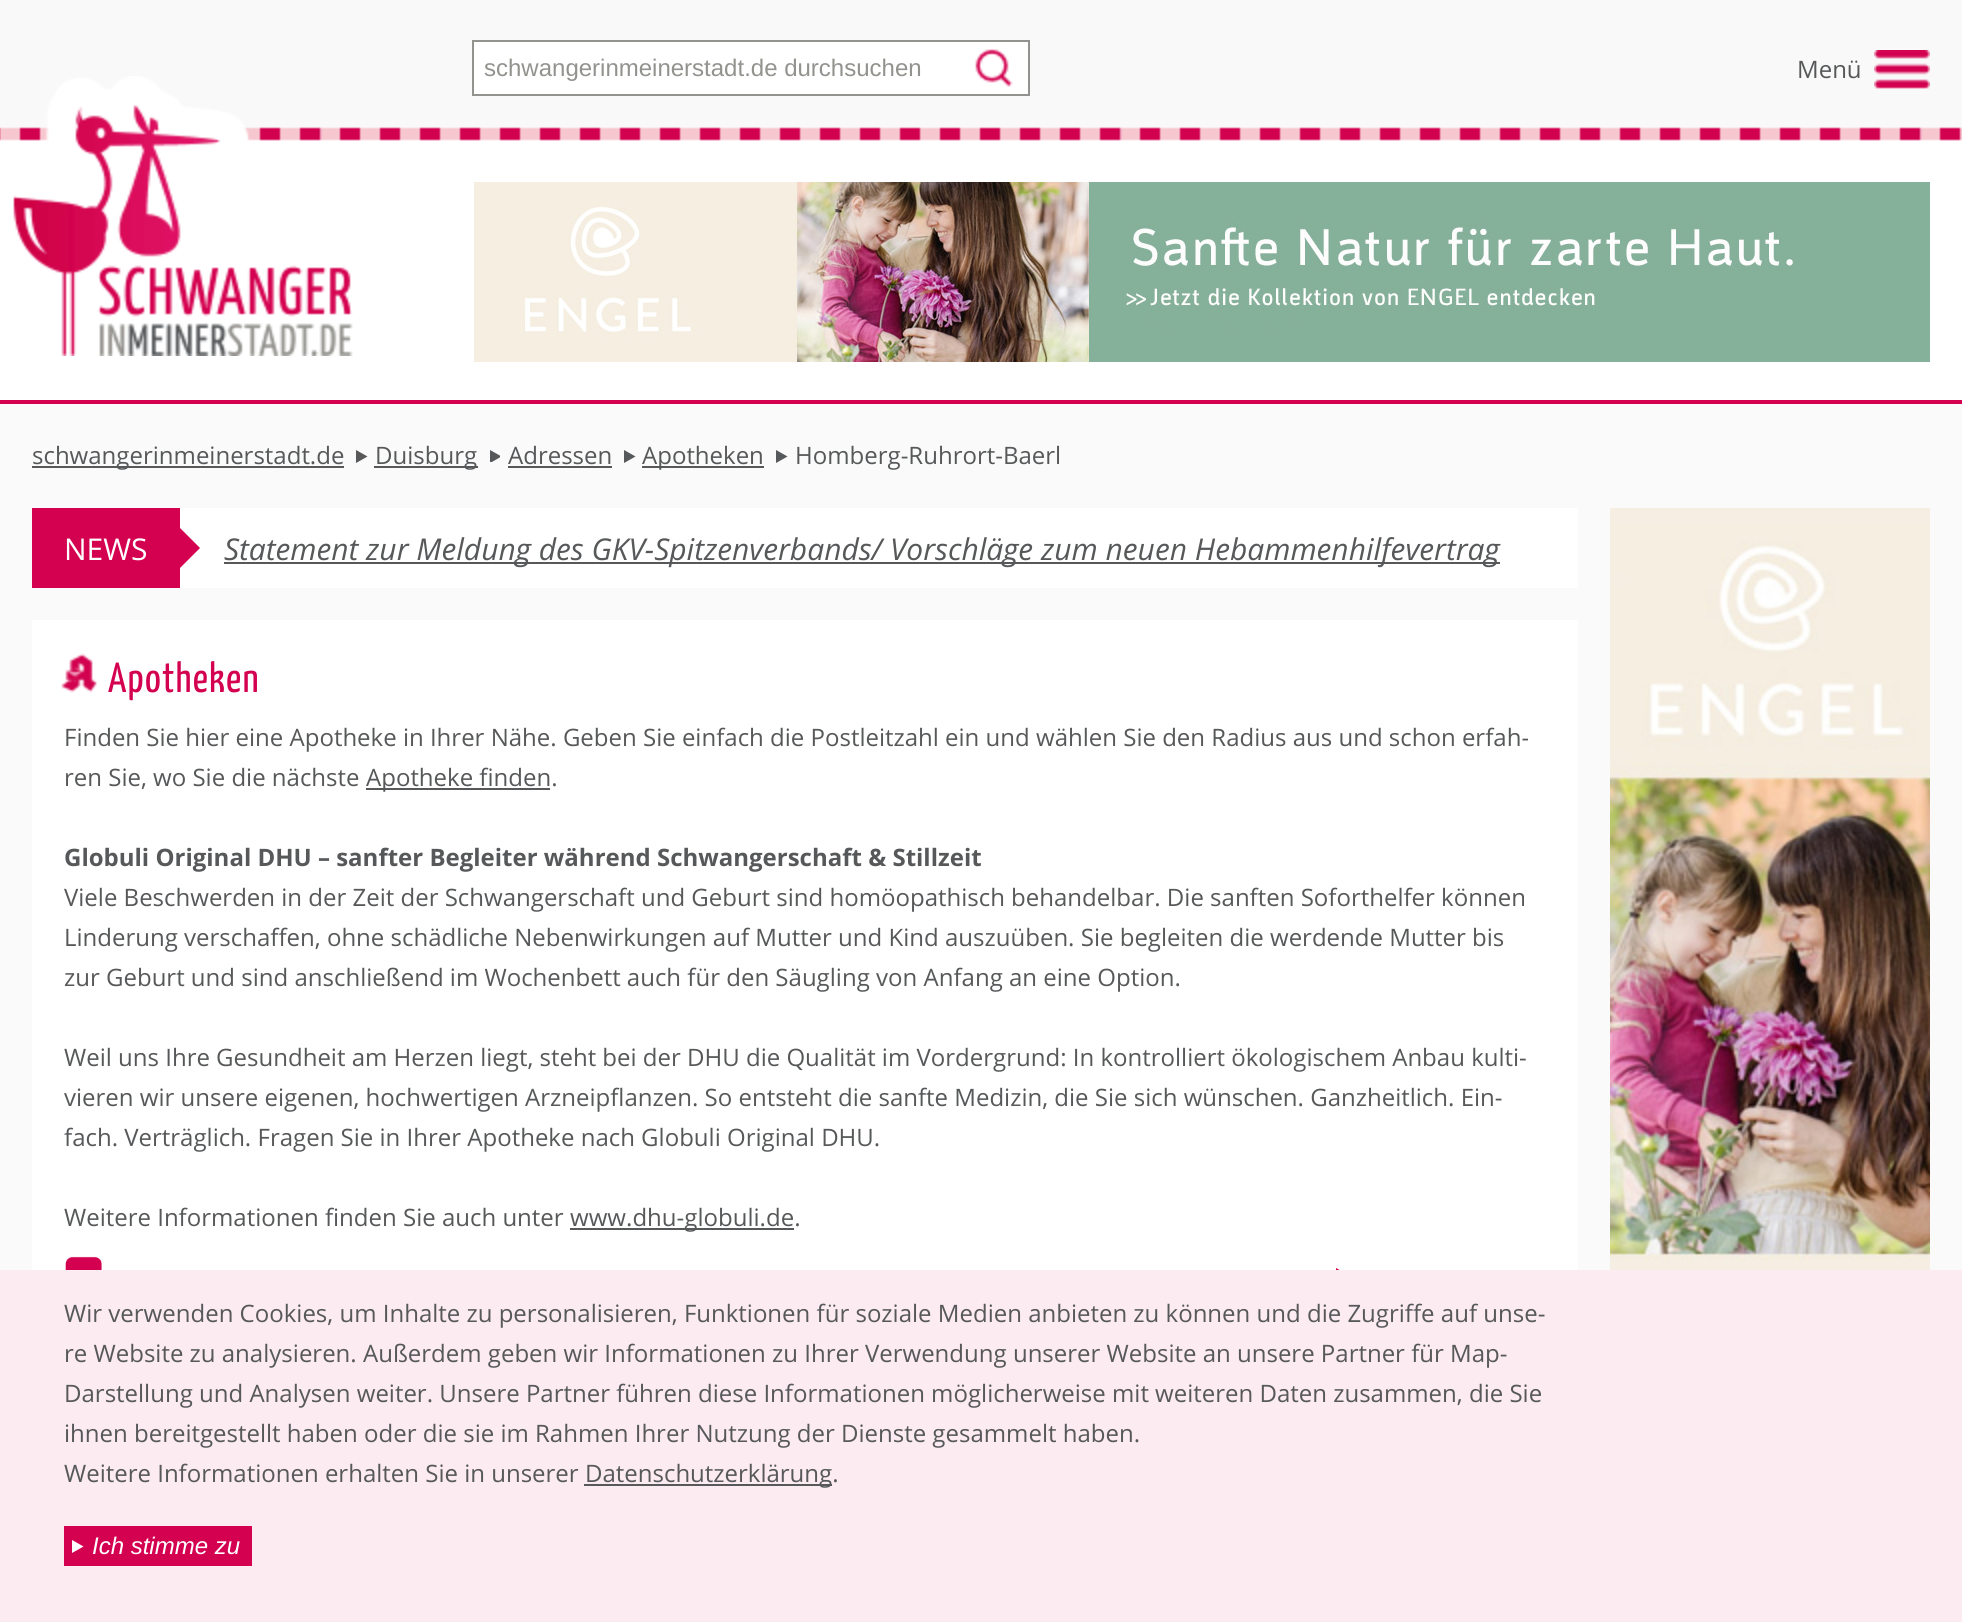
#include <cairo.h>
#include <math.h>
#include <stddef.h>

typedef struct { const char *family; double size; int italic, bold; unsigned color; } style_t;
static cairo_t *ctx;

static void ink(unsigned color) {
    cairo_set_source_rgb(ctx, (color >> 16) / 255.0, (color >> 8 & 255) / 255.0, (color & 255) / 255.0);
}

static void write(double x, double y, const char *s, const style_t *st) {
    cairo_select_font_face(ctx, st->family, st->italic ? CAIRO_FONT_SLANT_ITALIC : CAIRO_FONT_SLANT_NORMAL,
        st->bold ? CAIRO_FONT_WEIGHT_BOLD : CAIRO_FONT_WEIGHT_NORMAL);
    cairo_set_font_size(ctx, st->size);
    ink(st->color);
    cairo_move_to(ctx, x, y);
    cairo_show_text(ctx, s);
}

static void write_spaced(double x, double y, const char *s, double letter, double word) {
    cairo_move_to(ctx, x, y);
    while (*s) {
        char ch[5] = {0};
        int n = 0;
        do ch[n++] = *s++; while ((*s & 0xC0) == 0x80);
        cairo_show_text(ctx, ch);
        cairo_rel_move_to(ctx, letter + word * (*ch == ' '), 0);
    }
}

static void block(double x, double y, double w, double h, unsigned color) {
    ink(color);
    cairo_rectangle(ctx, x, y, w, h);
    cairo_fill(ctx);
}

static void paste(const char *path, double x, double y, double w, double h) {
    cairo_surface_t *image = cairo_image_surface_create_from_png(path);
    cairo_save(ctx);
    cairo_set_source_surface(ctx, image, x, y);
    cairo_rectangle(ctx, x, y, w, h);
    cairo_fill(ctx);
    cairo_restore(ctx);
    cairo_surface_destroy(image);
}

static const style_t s1 = {"Liberation Sans", 24, 0, 0, 0x92928e};
static const style_t s2 = {"Open Sans", 24, 0, 0, 0x565859};
static const style_t s3 = {"Open Sans", 30, 0, 0, 0xffffff};
static const style_t s4 = {"Open Sans", 30, 1, 0, 0x565859};
static const style_t s5 = {"Open Sans", 24, 0, 1, 0x565859};
static const style_t s6 = {"Liberation Sans", 24, 1, 0, 0xffffff};

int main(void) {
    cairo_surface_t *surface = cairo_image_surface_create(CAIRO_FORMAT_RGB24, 1962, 1622);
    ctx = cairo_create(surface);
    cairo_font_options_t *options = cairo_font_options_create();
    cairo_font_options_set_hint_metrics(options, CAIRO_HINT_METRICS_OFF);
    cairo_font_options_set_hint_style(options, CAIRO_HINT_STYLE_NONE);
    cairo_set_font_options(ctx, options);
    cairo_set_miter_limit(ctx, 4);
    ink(0xfafafa);
    cairo_paint(ctx);
    block(0, 139, 1962, 261, 0xffffff);
    paste("pic1.png", 0, 0, 1962, 141);
    block(0, 400, 1962, 4, 0xd40050);
    ink(0xffffff);
    cairo_rectangle(ctx, 473, 41, 556, 54);
    cairo_fill_preserve(ctx);
    ink(0x92928e);
    cairo_stroke(ctx);
    write(484, 76, "schwangerinmeinerstadt.de durchsuchen", &s1);
    paste("pic2.png", 975, 49, 38, 38);
    write(1797, 78, "Menü", &s2);
    paste("pic3.png", 1874, 50, 56, 39);
    paste("pic4.png", 13, 76, 340, 280);
    paste("pic5.png", 474, 182, 1456, 180);
    block(32, 466, 312, 2, 0x565859);
    write(32, 464, "schwangerinmeinerstadt.de", &s2);
    cairo_new_path(ctx);
    cairo_move_to(ctx, 356, 450);
    cairo_line_to(ctx, 367.5, 456.5);
    cairo_line_to(ctx, 356, 463);
    cairo_close_path(ctx);
    cairo_fill(ctx);
    block(374, 466, 104, 2, 0x565859);
    write(375, 464, "Duisburg", &s2);
    cairo_save(ctx);
    cairo_rectangle(ctx, 490, 450, 10, 12);
    cairo_clip(ctx);
    cairo_new_path(ctx);
    cairo_move_to(ctx, 490, 450);
    cairo_line_to(ctx, 501.5, 456.5);
    cairo_line_to(ctx, 490, 463);
    cairo_close_path(ctx);
    cairo_fill(ctx);
    cairo_restore(ctx);
    write(508, 464, "Adressen", &s2);
    block(508, 466, 104, 2, 0x565859);
    cairo_new_path(ctx);
    cairo_move_to(ctx, 624, 450);
    cairo_line_to(ctx, 635.5, 456.5);
    cairo_line_to(ctx, 624, 463);
    cairo_close_path(ctx);
    cairo_fill(ctx);
    block(642, 466, 122, 2, 0x565859);
    write(642, 464, "Apotheken", &s2);
    cairo_new_path(ctx);
    cairo_move_to(ctx, 776, 450);
    cairo_line_to(ctx, 787.5, 456.5);
    cairo_line_to(ctx, 776, 463);
    cairo_close_path(ctx);
    cairo_fill(ctx);
    write(795, 464, "Homberg-Ruhrort-Baerl", &s2);
    block(180, 508, 1398, 80, 0xffffff);
    block(32, 508, 148, 80, 0xd40050);
    write(64, 560, "NEWS", &s3);
    ink(0xd40050);
    cairo_new_path(ctx);
    cairo_move_to(ctx, 180, 568);
    cairo_line_to(ctx, 180, 528);
    cairo_line_to(ctx, 200, 548);
    cairo_close_path(ctx);
    cairo_fill(ctx);
    block(224, 562, 1276, 2, 0x565859);
    write(224, 560, "Statement zur Meldung des GKV-Spitzenverbands/ Vorschläge zum neuen Hebammenhilfevertrag", &s4);
    paste("pic6.png", 1610, 508, 320, 762);
    block(32, 620, 1546, 650, 0xffffff);
    paste("pic7.png", 61, 653, 36, 40);
    cairo_select_font_face(ctx, "Yanone Kaffeesatz", CAIRO_FONT_SLANT_NORMAL, CAIRO_FONT_WEIGHT_NORMAL);
    cairo_set_font_size(ctx, 42);
    ink(0xd40050);
    write_spaced(108, 692, "Apotheken", 1.25, 0);
    write(64, 746, "Finden Sie hier eine Apotheke in Ihrer Nähe. Geben Sie einfach die Postleitzahl ein und wählen Sie den Radius aus und schon erfah-", &s2);
    write(64, 786, "ren Sie, wo Sie die nächste", &s2);
    block(366, 788, 184, 2, 0x565859);
    write(366, 786, "Apotheke finden.", &s2);
    write(64, 866, "Globuli Original DHU – sanfter Begleiter während Schwangerschaft & Stillzeit", &s5);
    write(64, 906, "Viele Beschwerden in der Zeit der Schwangerschaft und Geburt sind homöopathisch behandelbar. Die sanften Soforthelfer können", &s2);
    write(64, 946, "Linderung verschaffen, ohne schädliche Nebenwirkungen auf Mutter und Kind auszuüben. Sie begleiten die werdende Mutter bis", &s2);
    write(64, 986, "zur Geburt und sind anschließend im Wochenbett auch für den Säugling von Anfang an eine Option.", &s2);
    write(64, 1066, "Weil uns Ihre Gesundheit am Herzen liegt, steht bei der DHU die Qualität im Vordergrund: In kontrolliert ökologischem Anbau kulti-", &s2);
    write(64, 1106, "vieren wir unsere eigenen, hochwertigen Arzneipflanzen. So entsteht die sanfte Medizin, die Sie sich wünschen. Ganzheitlich. Ein-", &s2);
    write(64, 1146, "fach. Verträglich. Fragen Sie in Ihrer Apotheke nach Globuli Original DHU.", &s2);
    write(64, 1226, "Weitere Informationen finden Sie auch unter", &s2);
    block(570, 1228, 224, 2, 0x565859);
    write(570, 1226, "www.dhu-globuli.de.", &s2);
    paste("pic8.png", 65, 1256, 37, 14);
    ink(0xd40050);
    cairo_new_path(ctx);
    cairo_move_to(ctx, 1336, 1268);
    cairo_line_to(ctx, 1347.5, 1274.5);
    cairo_line_to(ctx, 1336, 1281);
    cairo_close_path(ctx);
    cairo_fill(ctx);
    block(0, 1270, 1962, 352, 0xfcebf1);
    write(64, 1322, "Wir verwenden Cookies, um Inhalte zu personalisieren, Funktionen für soziale Medien anbieten zu können und die Zugriffe auf unse-", &s2);
    write(64, 1362, "re Website zu analysieren. Außerdem geben wir Informationen zu Ihrer Verwendung unserer Website an unsere Partner für Map-", &s2);
    write(64, 1402, "Darstellung und Analysen weiter. Unsere Partner führen diese Informationen möglicherweise mit weiteren Daten zusammen, die Sie", &s2);
    write(64, 1442, "ihnen bereitgestellt haben oder die sie im Rahmen Ihrer Nutzung der Dienste gesammelt haben.", &s2);
    write(64, 1482, "Weitere Informationen erhalten Sie in unserer", &s2);
    block(584, 1484, 248, 2, 0x565859);
    write(585, 1482, "Datenschutzerklärung.", &s2);
    block(64, 1526, 188, 40, 0xd40050);
    ink(0xffffff);
    cairo_new_path(ctx);
    cairo_move_to(ctx, 72, 1540);
    cairo_line_to(ctx, 83.5, 1546.5);
    cairo_line_to(ctx, 72, 1553);
    cairo_close_path(ctx);
    cairo_fill(ctx);
    write(92, 1554, "Ich stimme zu", &s6);
    cairo_surface_write_to_png(surface, "screenshot.png");
    cairo_font_options_destroy(options);
    cairo_destroy(ctx);
    cairo_surface_destroy(surface);
    return 0;
}
